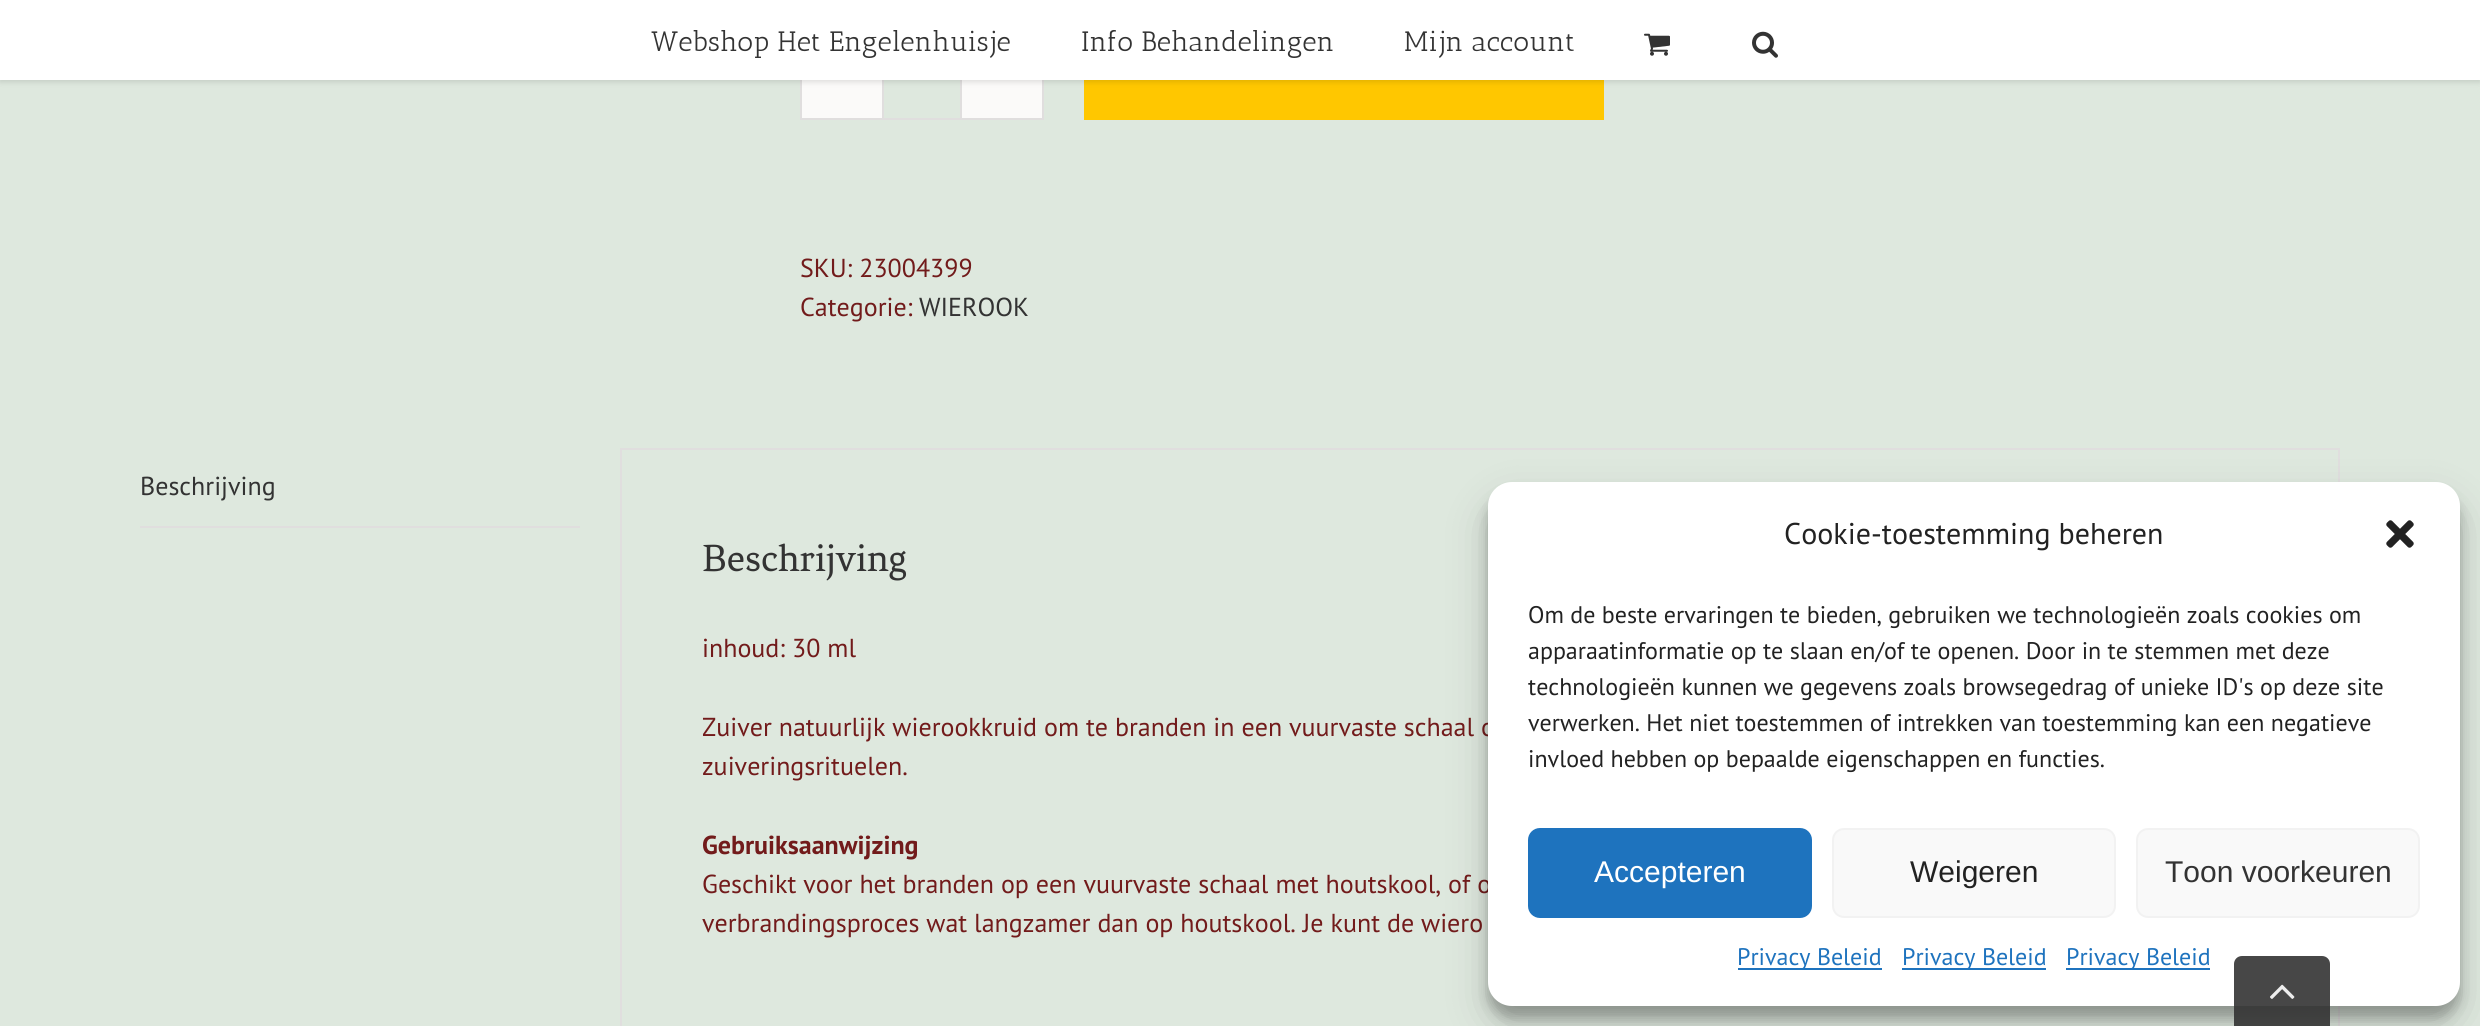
#include <cairo.h>
#include <math.h>
#include <stddef.h>

typedef struct { const char *family; double size; int italic, bold; unsigned color; } style_t;
static cairo_t *ctx;

static void ink(unsigned color) {
    cairo_set_source_rgb(ctx, (color >> 16) / 255.0, (color >> 8 & 255) / 255.0, (color & 255) / 255.0);
}

static void write(double x, double y, const char *s, const style_t *st) {
    cairo_select_font_face(ctx, st->family, st->italic ? CAIRO_FONT_SLANT_ITALIC : CAIRO_FONT_SLANT_NORMAL,
        st->bold ? CAIRO_FONT_WEIGHT_BOLD : CAIRO_FONT_WEIGHT_NORMAL);
    cairo_set_font_size(ctx, st->size);
    ink(st->color);
    cairo_move_to(ctx, x, y);
    cairo_show_text(ctx, s);
}

static void block(double x, double y, double w, double h, unsigned color) {
    ink(color);
    cairo_rectangle(ctx, x, y, w, h);
    cairo_fill(ctx);
}

static void round_path(double x, double y, double w, double h, double r) {
    cairo_new_sub_path(ctx);
    cairo_arc(ctx, x + w - r, y + h - r, r, 0, M_PI / 2);
    cairo_arc(ctx, x + r, y + h - r, r, M_PI / 2, M_PI);
    cairo_arc(ctx, x + r, y + r, r, M_PI, 1.5 * M_PI);
    cairo_arc(ctx, x + w - r, y + r, r, 1.5 * M_PI, 2 * M_PI);
    cairo_close_path(ctx);
}

static void blur_box(double x, double y, double w, double h, double r, double blur, double alpha) {
    cairo_push_group_with_content(ctx, CAIRO_CONTENT_ALPHA);
    cairo_set_operator(ctx, CAIRO_OPERATOR_SOURCE);
    for (int i = 15; i >= -15 && fmin(w, h) + blur * i / 3 > 0; i -= 2) {
        double e = blur * i / 6;
        cairo_set_source_rgba(ctx, 0, 0, 0, alpha * erfc((i - 1) / 8.5) / 2);
        round_path(x - e, y - e, w + 2 * e, h + 2 * e, fmax(0, fmin(r + e + blur * .6, fmin(w, h) / 2 + e)));
        cairo_fill(ctx);
    }
    cairo_pattern_t *soft = cairo_pop_group(ctx);
    cairo_mask(ctx, soft);
    cairo_pattern_destroy(soft);
}

static void paste(const char *path, double x, double y, double w, double h) {
    cairo_surface_t *image = cairo_image_surface_create_from_png(path);
    cairo_save(ctx);
    cairo_set_source_surface(ctx, image, x, y);
    cairo_rectangle(ctx, x, y, w, h);
    cairo_fill(ctx);
    cairo_restore(ctx);
    cairo_surface_destroy(image);
}

static const style_t s1 = {"Antic Slab", 28, 0, 0, 0x333333};
static const style_t s2 = {"PT Sans", 26, 0, 0, 0x721b1b};
static const style_t s3 = {"PT Sans", 26, 0, 0, 0x333333};
static const style_t s4 = {"Fenix", 40, 0, 0, 0x333333};
static const style_t s5 = {"PT Sans", 26, 0, 1, 0x721b1b};
static const style_t s6 = {"PT Sans", 30, 0, 0, 0x222222};
static const style_t s7 = {"PT Sans", 24, 0, 0, 0x222222};
static const style_t s8 = {"Liberation Sans", 30, 0, 0, 0xffffff};
static const style_t s9 = {"Liberation Sans", 30, 0, 0, 0x222222};
static const style_t s10 = {"Liberation Sans", 30, 0, 0, 0x333333};
static const style_t s11 = {"PT Sans", 24, 0, 0, 0x1e73be};

int main(void) {
    cairo_surface_t *surface = cairo_image_surface_create(CAIRO_FORMAT_RGB24, 2480, 1026);
    ctx = cairo_create(surface);
    cairo_font_options_t *options = cairo_font_options_create();
    cairo_font_options_set_hint_metrics(options, CAIRO_HINT_METRICS_OFF);
    cairo_font_options_set_hint_style(options, CAIRO_HINT_STYLE_NONE);
    cairo_set_font_options(ctx, options);
    cairo_set_miter_limit(ctx, 4);
    ink(0xdee8de);
    cairo_paint(ctx);
    cairo_rectangle(ctx, 801, 37, 242, 82);
    ink(0xe0dede);
    cairo_stroke(ctx);
    block(802, 80, 80, 38, 0xfbfaf9);
    block(960, 80, 2, 38, 0xe0dede);
    block(882, 80, 2, 38, 0xe0dede);
    block(962, 80, 80, 38, 0xfbfaf9);
    block(1084, 80, 520, 40, 0xffc700);
    ink(0x000000);
    blur_box(0, 2, 2480, 80, 0, 3, 0.12);
    block(0, 0, 2480, 80, 0xffffff);
    write(651, 51, "Webshop Het Engelenhuisje", &s1);
    write(1081, 51, "Info Behandelingen", &s1);
    write(1404, 51, "Mijn account", &s1);
    paste("pic1.png", 1644, 33, 26, 23);
    paste("pic2.png", 1752, 31, 26, 27);
    write(800, 277, "SKU: 23004399", &s2);
    write(800, 316, "Categorie:", &s2);
    write(919, 316, "WIEROOK", &s3);
    block(140, 526, 440, 2, 0xe0dede);
    write(140, 495, "Beschrijving", &s3);
    cairo_rectangle(ctx, 621, 449, 1718, 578);
    ink(0xe0dede);
    cairo_stroke(ctx);
    write(702, 571, "Beschrijving", &s4);
    write(702, 657, "inhoud: 30 ml", &s2);
    write(702, 736, "Zuiver natuurlijk wierookkruid om te branden in een vuurvaste schaal o", &s2);
    write(702, 775, "zuiveringsrituelen.", &s2);
    write(702, 854, "Gebruiksaanwijzing", &s5);
    write(702, 893, "Geschikt voor het branden op een vuurvaste schaal met houtskool, of o", &s2);
    write(702, 932, "verbrandingsproces wat langzamer dan op houtskool. Je kunt de wiero", &s2);
    ink(0x000000);
    blur_box(1488, 494, 972, 524, 24, 6, 0.23);
    blur_box(1488, 502, 972, 524, 24, 20, 0.19);
    ink(0xffffff);
    round_path(1488, 482, 972, 524, 24);
    cairo_fill(ctx);
    write(1784, 544, "Cookie-toestemming beheren", &s6);
    paste("pic3.png", 2386, 520, 28, 28);
    write(1528, 623, "Om de beste ervaringen te bieden, gebruiken we technologieën zoals cookies om", &s7);
    write(1528, 659, "apparaatinformatie op te slaan en/of te openen. Door in te stemmen met deze", &s7);
    write(1528, 695, "technologieën kunnen we gegevens zoals browsegedrag of unieke ID's op deze site", &s7);
    write(1528, 731, "verwerken. Het niet toestemmen of intrekken van toestemming kan een negatieve", &s7);
    write(1528, 767, "invloed hebben op bepaalde eigenschappen en functies.", &s7);
    ink(0x1e73be);
    round_path(1529, 829, 282, 88, 11);
    cairo_fill_preserve(ctx);
    cairo_stroke(ctx);
    write(1594, 882, "Accepteren", &s8);
    ink(0xf9f9f9);
    round_path(1833, 829, 282, 88, 11);
    cairo_fill_preserve(ctx);
    ink(0xf2f2f2);
    cairo_stroke(ctx);
    write(1910, 882, "Weigeren", &s9);
    ink(0xf9f9f9);
    round_path(2137, 829, 282, 88, 11);
    cairo_fill_preserve(ctx);
    ink(0xf2f2f2);
    cairo_stroke(ctx);
    write(2165, 882, "Toon voorkeuren", &s10);
    block(1738, 968, 144, 2, 0x1e73be);
    write(1737, 965, "Privacy Beleid", &s11);
    block(1902, 968, 144, 2, 0x1e73be);
    write(1902, 965, "Privacy Beleid", &s11);
    block(2066, 968, 144, 2, 0x1e73be);
    write(2066, 965, "Privacy Beleid", &s11);
    cairo_set_source_rgba(ctx, 0.2, 0.2, 0.2, 0.9);
    cairo_new_path(ctx);
    cairo_move_to(ctx, 2242, 956);
    cairo_line_to(ctx, 2322, 956);
    cairo_curve_to(ctx, 2326.5, 956, 2330, 959.5, 2330, 964);
    cairo_line_to(ctx, 2330, 1026);
    cairo_line_to(ctx, 2234, 1026);
    cairo_line_to(ctx, 2234, 964);
    cairo_curve_to(ctx, 2234, 959.5, 2237.5, 956, 2242, 956);
    cairo_close_path(ctx);
    cairo_fill(ctx);
    paste("pic4.png", 2270, 984, 25, 15);
    cairo_surface_write_to_png(surface, "screenshot.png");
    cairo_font_options_destroy(options);
    cairo_destroy(ctx);
    cairo_surface_destroy(surface);
    return 0;
}
